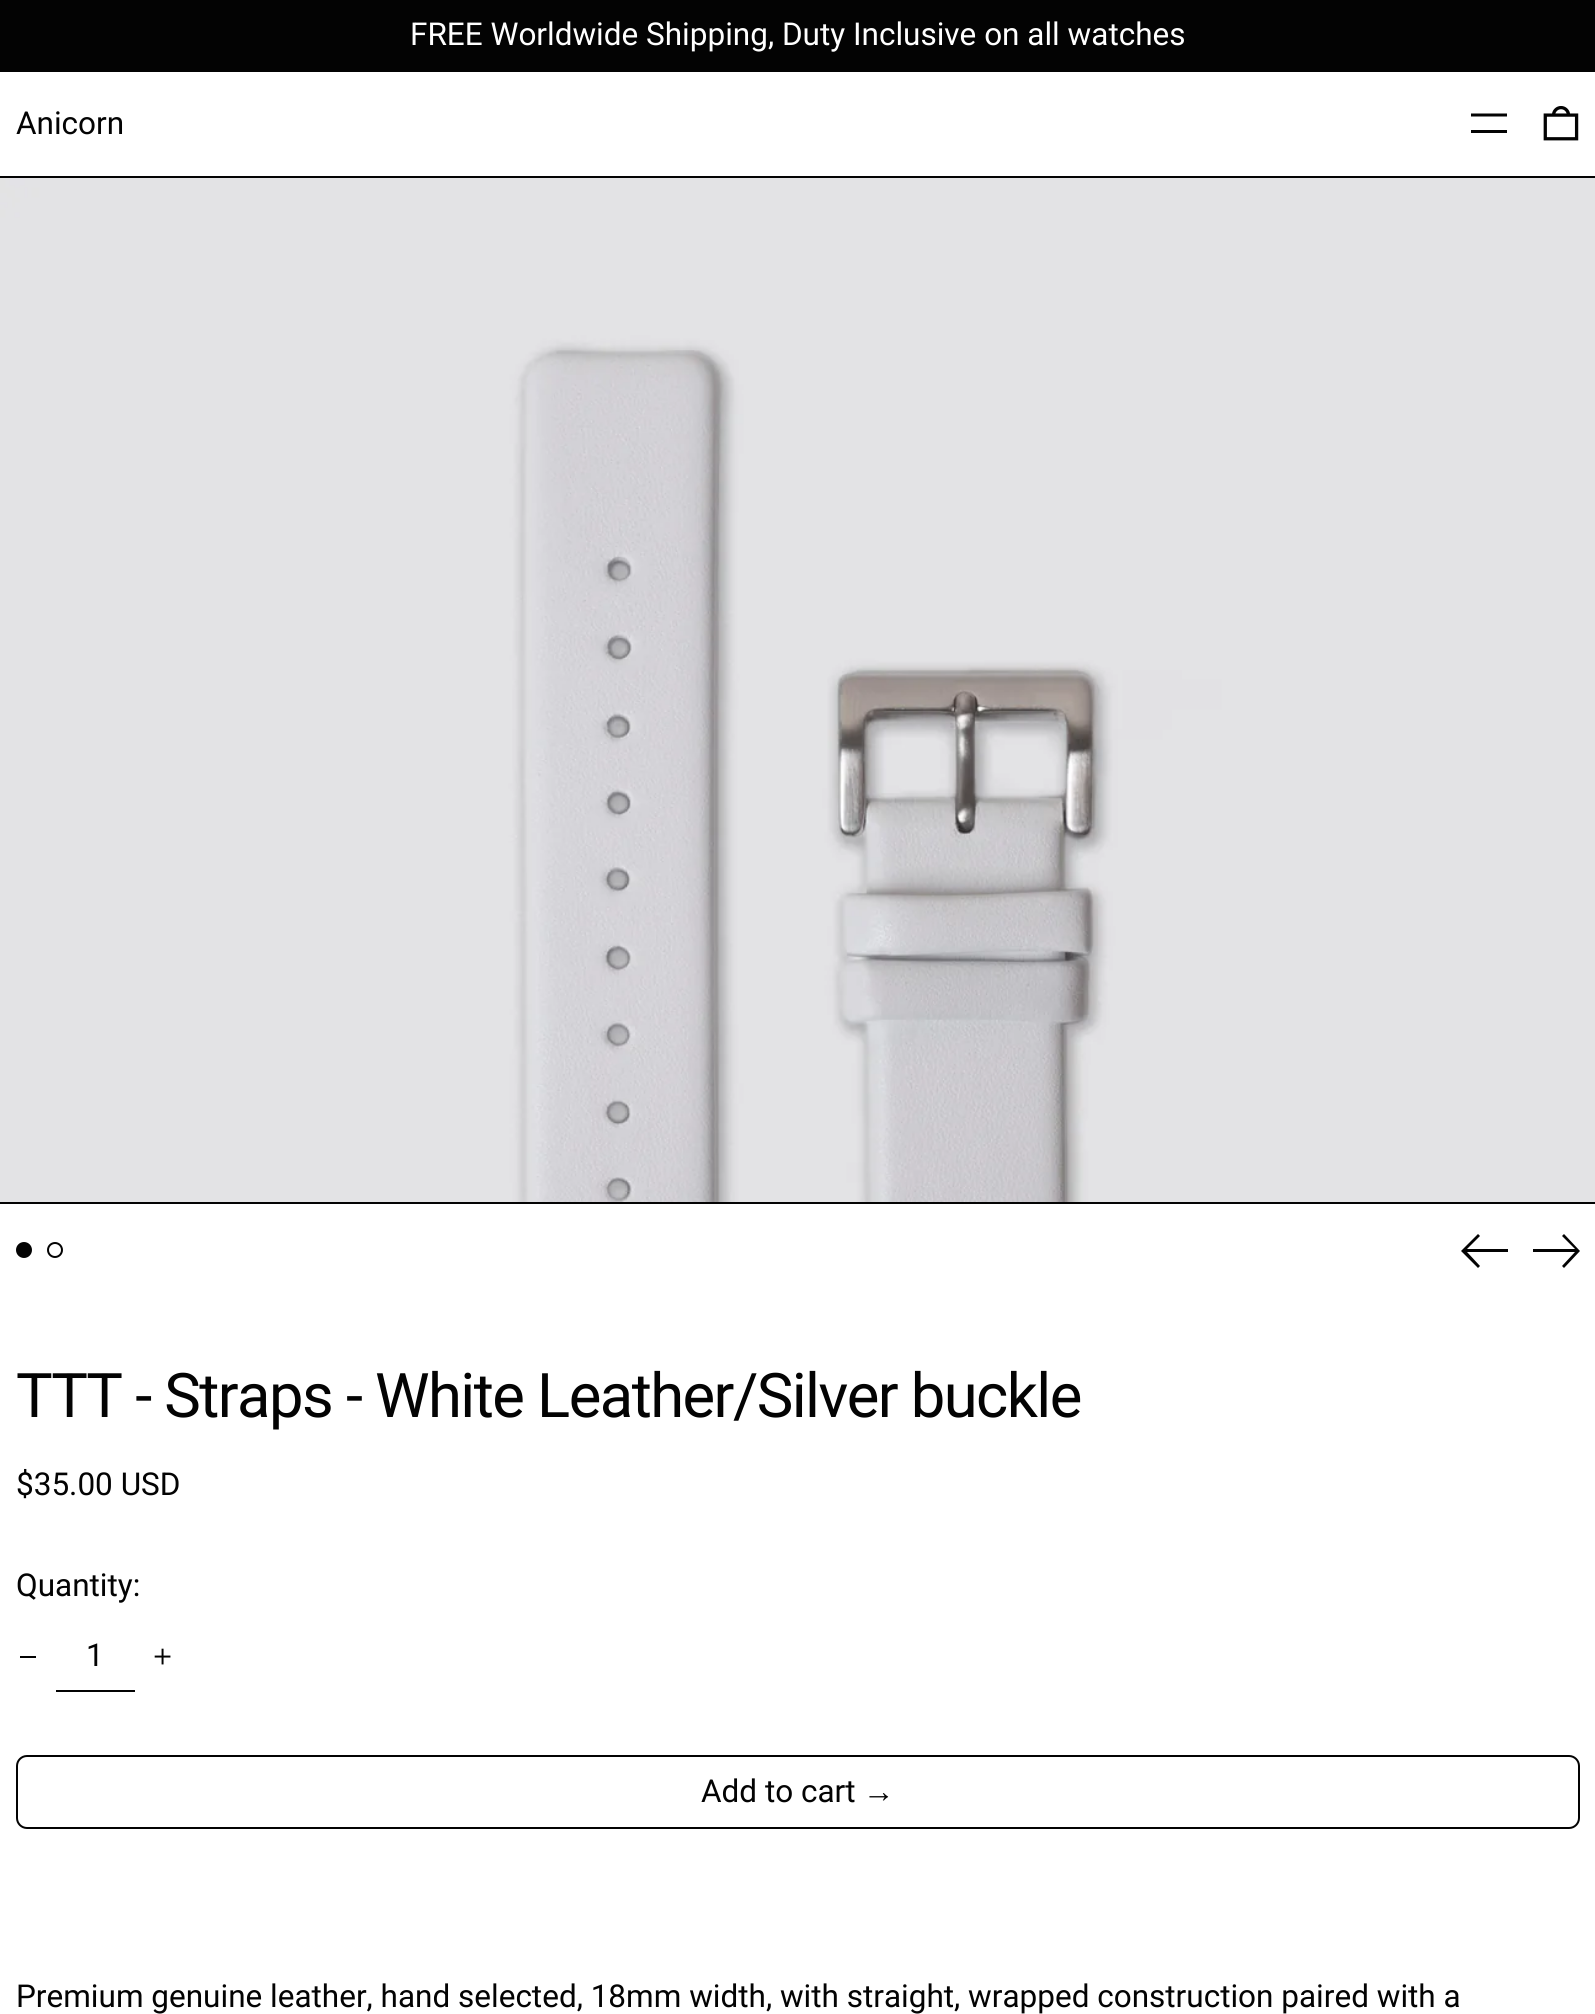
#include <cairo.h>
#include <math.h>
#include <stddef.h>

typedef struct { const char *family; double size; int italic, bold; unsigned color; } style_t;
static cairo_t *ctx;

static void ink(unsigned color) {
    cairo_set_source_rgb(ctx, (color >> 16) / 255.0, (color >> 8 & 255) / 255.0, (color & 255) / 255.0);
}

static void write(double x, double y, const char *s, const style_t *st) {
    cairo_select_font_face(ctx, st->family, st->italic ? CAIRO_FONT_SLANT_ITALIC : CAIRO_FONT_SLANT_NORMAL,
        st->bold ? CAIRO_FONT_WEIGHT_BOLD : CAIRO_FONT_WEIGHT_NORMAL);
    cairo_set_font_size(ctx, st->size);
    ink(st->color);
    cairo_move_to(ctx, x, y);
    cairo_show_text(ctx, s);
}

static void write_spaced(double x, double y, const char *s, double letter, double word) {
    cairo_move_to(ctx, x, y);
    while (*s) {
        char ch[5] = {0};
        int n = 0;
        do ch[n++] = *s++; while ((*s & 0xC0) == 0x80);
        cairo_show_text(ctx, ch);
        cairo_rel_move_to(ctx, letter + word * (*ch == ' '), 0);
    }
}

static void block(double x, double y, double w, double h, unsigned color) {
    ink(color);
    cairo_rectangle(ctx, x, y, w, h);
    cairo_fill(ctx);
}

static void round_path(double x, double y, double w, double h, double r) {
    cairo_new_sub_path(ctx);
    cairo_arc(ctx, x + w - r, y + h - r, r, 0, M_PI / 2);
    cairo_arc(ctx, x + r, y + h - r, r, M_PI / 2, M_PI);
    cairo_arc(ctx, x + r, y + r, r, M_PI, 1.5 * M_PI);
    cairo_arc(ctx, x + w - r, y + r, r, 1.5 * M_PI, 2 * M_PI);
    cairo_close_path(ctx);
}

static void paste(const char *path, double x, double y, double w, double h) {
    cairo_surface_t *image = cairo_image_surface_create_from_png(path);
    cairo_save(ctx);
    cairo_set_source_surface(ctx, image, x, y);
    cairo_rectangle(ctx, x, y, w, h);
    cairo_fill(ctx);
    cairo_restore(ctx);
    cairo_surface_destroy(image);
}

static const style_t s1 = {"Roboto", 31.5, 0, 0, 0xffffff};
static const style_t s2 = {"Roboto", 31.5, 0, 0, 0x030303};
static const style_t s3 = {"Liberation Sans", 31.5, 0, 0, 0x030303};

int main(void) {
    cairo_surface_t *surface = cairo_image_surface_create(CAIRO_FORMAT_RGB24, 1595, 2014);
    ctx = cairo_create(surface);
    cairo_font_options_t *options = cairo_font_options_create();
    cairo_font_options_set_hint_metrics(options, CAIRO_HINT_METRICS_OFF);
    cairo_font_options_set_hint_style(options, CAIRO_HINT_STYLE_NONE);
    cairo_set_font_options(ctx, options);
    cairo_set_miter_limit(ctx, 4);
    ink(0xffffff);
    cairo_paint(ctx);
    block(0, 0, 1595, 72, 0x030303);
    write(410, 45, "FREE Worldwide Shipping, Duty Inclusive on all watches", &s1);
    write(16, 134, "Anicorn", &s2);
    cairo_set_fill_rule(ctx, CAIRO_FILL_RULE_EVEN_ODD);
    cairo_new_path(ctx);
    cairo_move_to(ctx, 1507, 130);
    cairo_line_to(ctx, 1507, 133);
    cairo_line_to(ctx, 1471, 133);
    cairo_line_to(ctx, 1471, 130);
    cairo_close_path(ctx);
    cairo_move_to(ctx, 1507, 113.5);
    cairo_line_to(ctx, 1507, 116.5);
    cairo_line_to(ctx, 1471, 116.5);
    cairo_line_to(ctx, 1471, 113.5);
    cairo_close_path(ctx);
    cairo_fill(ctx);
    paste("pic1.png", 1543, 106, 36, 35);
    block(0, 176, 1595, 2, 0x030303);
    block(0, 1202, 1595, 2, 0x030303);
    paste("pic2.png", 0, 178, 1595, 1024);
    cairo_arc(ctx, 24, 1250, 7, 0, 2 * M_PI);
    cairo_fill_preserve(ctx);
    cairo_stroke(ctx);
    cairo_arc(ctx, 55, 1250, 7, 0, 2 * M_PI);
    cairo_stroke(ctx);
    cairo_set_fill_rule(ctx, CAIRO_FILL_RULE_WINDING);
    cairo_new_path(ctx);
    cairo_move_to(ctx, 1478, 1234);
    cairo_line_to(ctx, 1461, 1251);
    cairo_line_to(ctx, 1478, 1268);
    cairo_line_to(ctx, 1480, 1266);
    cairo_line_to(ctx, 1467, 1252);
    cairo_line_to(ctx, 1508, 1252);
    cairo_line_to(ctx, 1508, 1249);
    cairo_line_to(ctx, 1467, 1249);
    cairo_line_to(ctx, 1480, 1236);
    cairo_close_path(ctx);
    cairo_fill(ctx);
    cairo_new_path(ctx);
    cairo_move_to(ctx, 1564, 1234);
    cairo_line_to(ctx, 1580, 1251);
    cairo_line_to(ctx, 1564, 1268);
    cairo_line_to(ctx, 1562, 1266);
    cairo_line_to(ctx, 1575, 1252);
    cairo_line_to(ctx, 1533, 1252);
    cairo_line_to(ctx, 1533, 1249);
    cairo_line_to(ctx, 1575, 1249);
    cairo_line_to(ctx, 1562, 1236);
    cairo_close_path(ctx);
    cairo_fill(ctx);
    cairo_set_font_size(ctx, 61.5);
    write_spaced(16, 1417, "TTT - Straps - White Leather/Silver buckle", -1.55, 0);
    write(16, 1495, "$35.00 USD", &s2);
    write(16, 1596, "Quantity:", &s2);
    block(20, 1656, 16, 2, 0x030303);
    block(56, 1690, 79, 2, 0x030303);
    write(86, 1666, "1", &s2);
    paste("pic3.png", 154, 1648, 17, 17);
    round_path(17, 1756, 1562, 72, 10);
    cairo_stroke(ctx);
    write(701, 1802, "Add to cart", &s2);
    write(863, 1802, "→", &s3);
    write(16, 2007, "Premium genuine leather, hand selected, 18mm width, with straight, wrapped construction paired with a", &s2);
    cairo_surface_write_to_png(surface, "screenshot.png");
    cairo_font_options_destroy(options);
    cairo_destroy(ctx);
    cairo_surface_destroy(surface);
    return 0;
}
